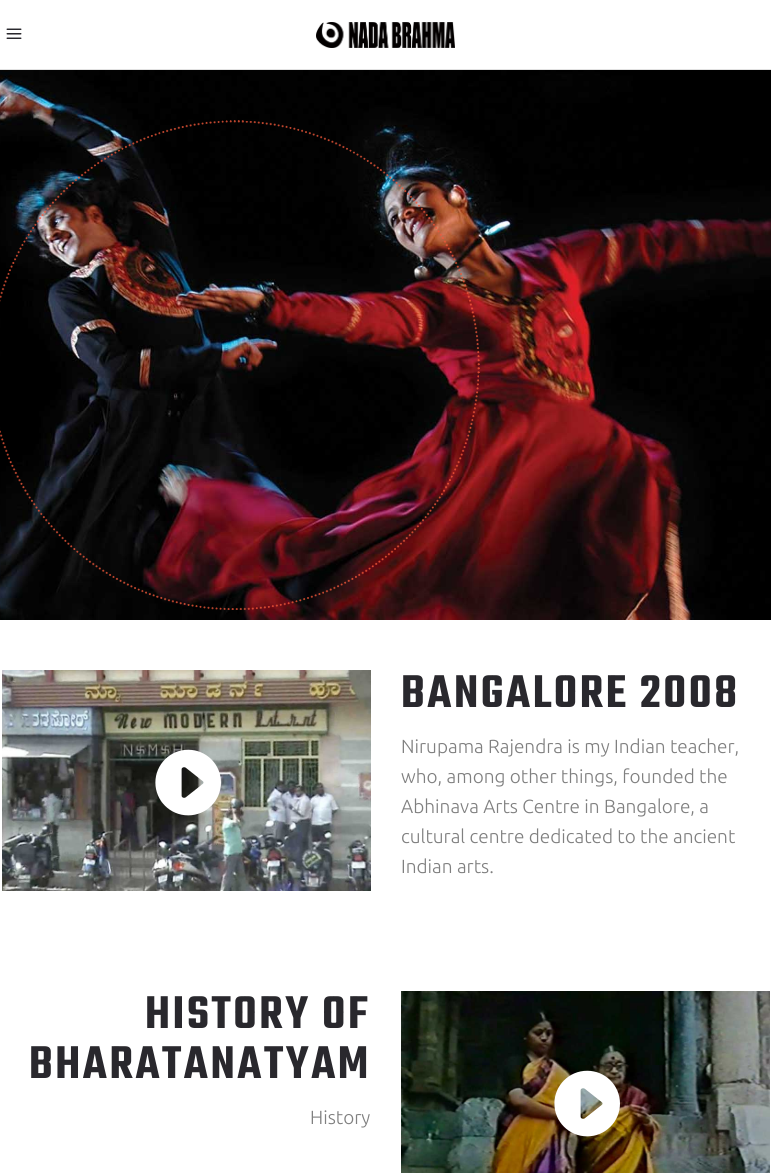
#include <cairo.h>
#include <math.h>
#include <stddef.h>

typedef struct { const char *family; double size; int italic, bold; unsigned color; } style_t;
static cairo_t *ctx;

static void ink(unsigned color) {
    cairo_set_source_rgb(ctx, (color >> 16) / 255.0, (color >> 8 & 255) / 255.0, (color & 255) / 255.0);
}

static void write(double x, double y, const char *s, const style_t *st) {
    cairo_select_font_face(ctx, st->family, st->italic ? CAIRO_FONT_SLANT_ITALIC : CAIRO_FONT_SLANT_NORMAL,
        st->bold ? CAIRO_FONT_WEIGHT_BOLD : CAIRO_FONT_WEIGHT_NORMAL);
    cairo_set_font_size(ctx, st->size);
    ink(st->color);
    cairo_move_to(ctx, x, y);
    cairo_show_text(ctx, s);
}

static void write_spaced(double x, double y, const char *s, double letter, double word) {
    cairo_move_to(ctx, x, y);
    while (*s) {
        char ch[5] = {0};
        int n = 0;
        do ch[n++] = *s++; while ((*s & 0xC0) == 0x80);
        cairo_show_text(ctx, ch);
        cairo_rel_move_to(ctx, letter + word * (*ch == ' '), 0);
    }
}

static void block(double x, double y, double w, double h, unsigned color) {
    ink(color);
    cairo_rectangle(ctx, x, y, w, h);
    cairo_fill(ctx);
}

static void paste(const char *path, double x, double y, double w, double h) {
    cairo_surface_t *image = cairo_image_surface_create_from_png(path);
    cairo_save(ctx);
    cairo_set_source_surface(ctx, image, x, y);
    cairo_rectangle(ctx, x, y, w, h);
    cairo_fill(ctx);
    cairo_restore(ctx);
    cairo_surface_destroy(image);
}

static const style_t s1 = {"Ubuntu Light", 19, 0, 0, 0x808080};

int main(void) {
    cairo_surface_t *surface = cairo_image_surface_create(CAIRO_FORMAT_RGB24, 771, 1173);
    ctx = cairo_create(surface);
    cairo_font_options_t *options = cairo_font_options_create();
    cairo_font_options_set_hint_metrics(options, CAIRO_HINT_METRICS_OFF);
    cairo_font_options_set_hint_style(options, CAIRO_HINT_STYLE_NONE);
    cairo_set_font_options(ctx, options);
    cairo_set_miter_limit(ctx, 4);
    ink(0xffffff);
    cairo_paint(ctx);
    block(0, 69, 771, 1, 0xe1e1e1);
    paste("pic1.png", 6, 28, 16, 11);
    paste("pic2.png", 316, 22, 139, 26);
    paste("pic3.png", 0, 70, 771, 550);
    paste("pic4.png", 0, 120, 480, 490);
    paste("pic5.png", 2, 670, 369, 221);
    paste("pic6.png", 155, 749, 66, 67);
    cairo_select_font_face(ctx, "Teko SemiBold", CAIRO_FONT_SLANT_NORMAL, CAIRO_FONT_WEIGHT_NORMAL);
    cairo_set_font_size(ctx, 50);
    ink(0x29282d);
    write_spaced(401, 707, "BANGALORE 2008", 2.5, 0);
    write(401, 753, "Nirupama Rajendra is my Indian teacher,", &s1);
    write(401, 783, "who, among other things, founded the", &s1);
    write(401, 813, "Abhinava Arts Centre in Bangalore, a", &s1);
    write(401, 843, "cultural centre dedicated to the ancient", &s1);
    write(401, 873, "Indian arts.", &s1);
    cairo_select_font_face(ctx, "Teko SemiBold", CAIRO_FONT_SLANT_NORMAL, CAIRO_FONT_WEIGHT_NORMAL);
    cairo_set_font_size(ctx, 50);
    ink(0x29282d);
    write_spaced(145, 1028, "HISTORY OF", 2.5, 0);
    write_spaced(29, 1078, "BHARATANATYAM", 2.5, 0);
    write(310, 1124, "History", &s1);
    paste("pic7.png", 401, 991, 369, 182);
    paste("pic8.png", 554, 1070, 66, 67);
    cairo_surface_write_to_png(surface, "screenshot.png");
    cairo_font_options_destroy(options);
    cairo_destroy(ctx);
    cairo_surface_destroy(surface);
    return 0;
}
